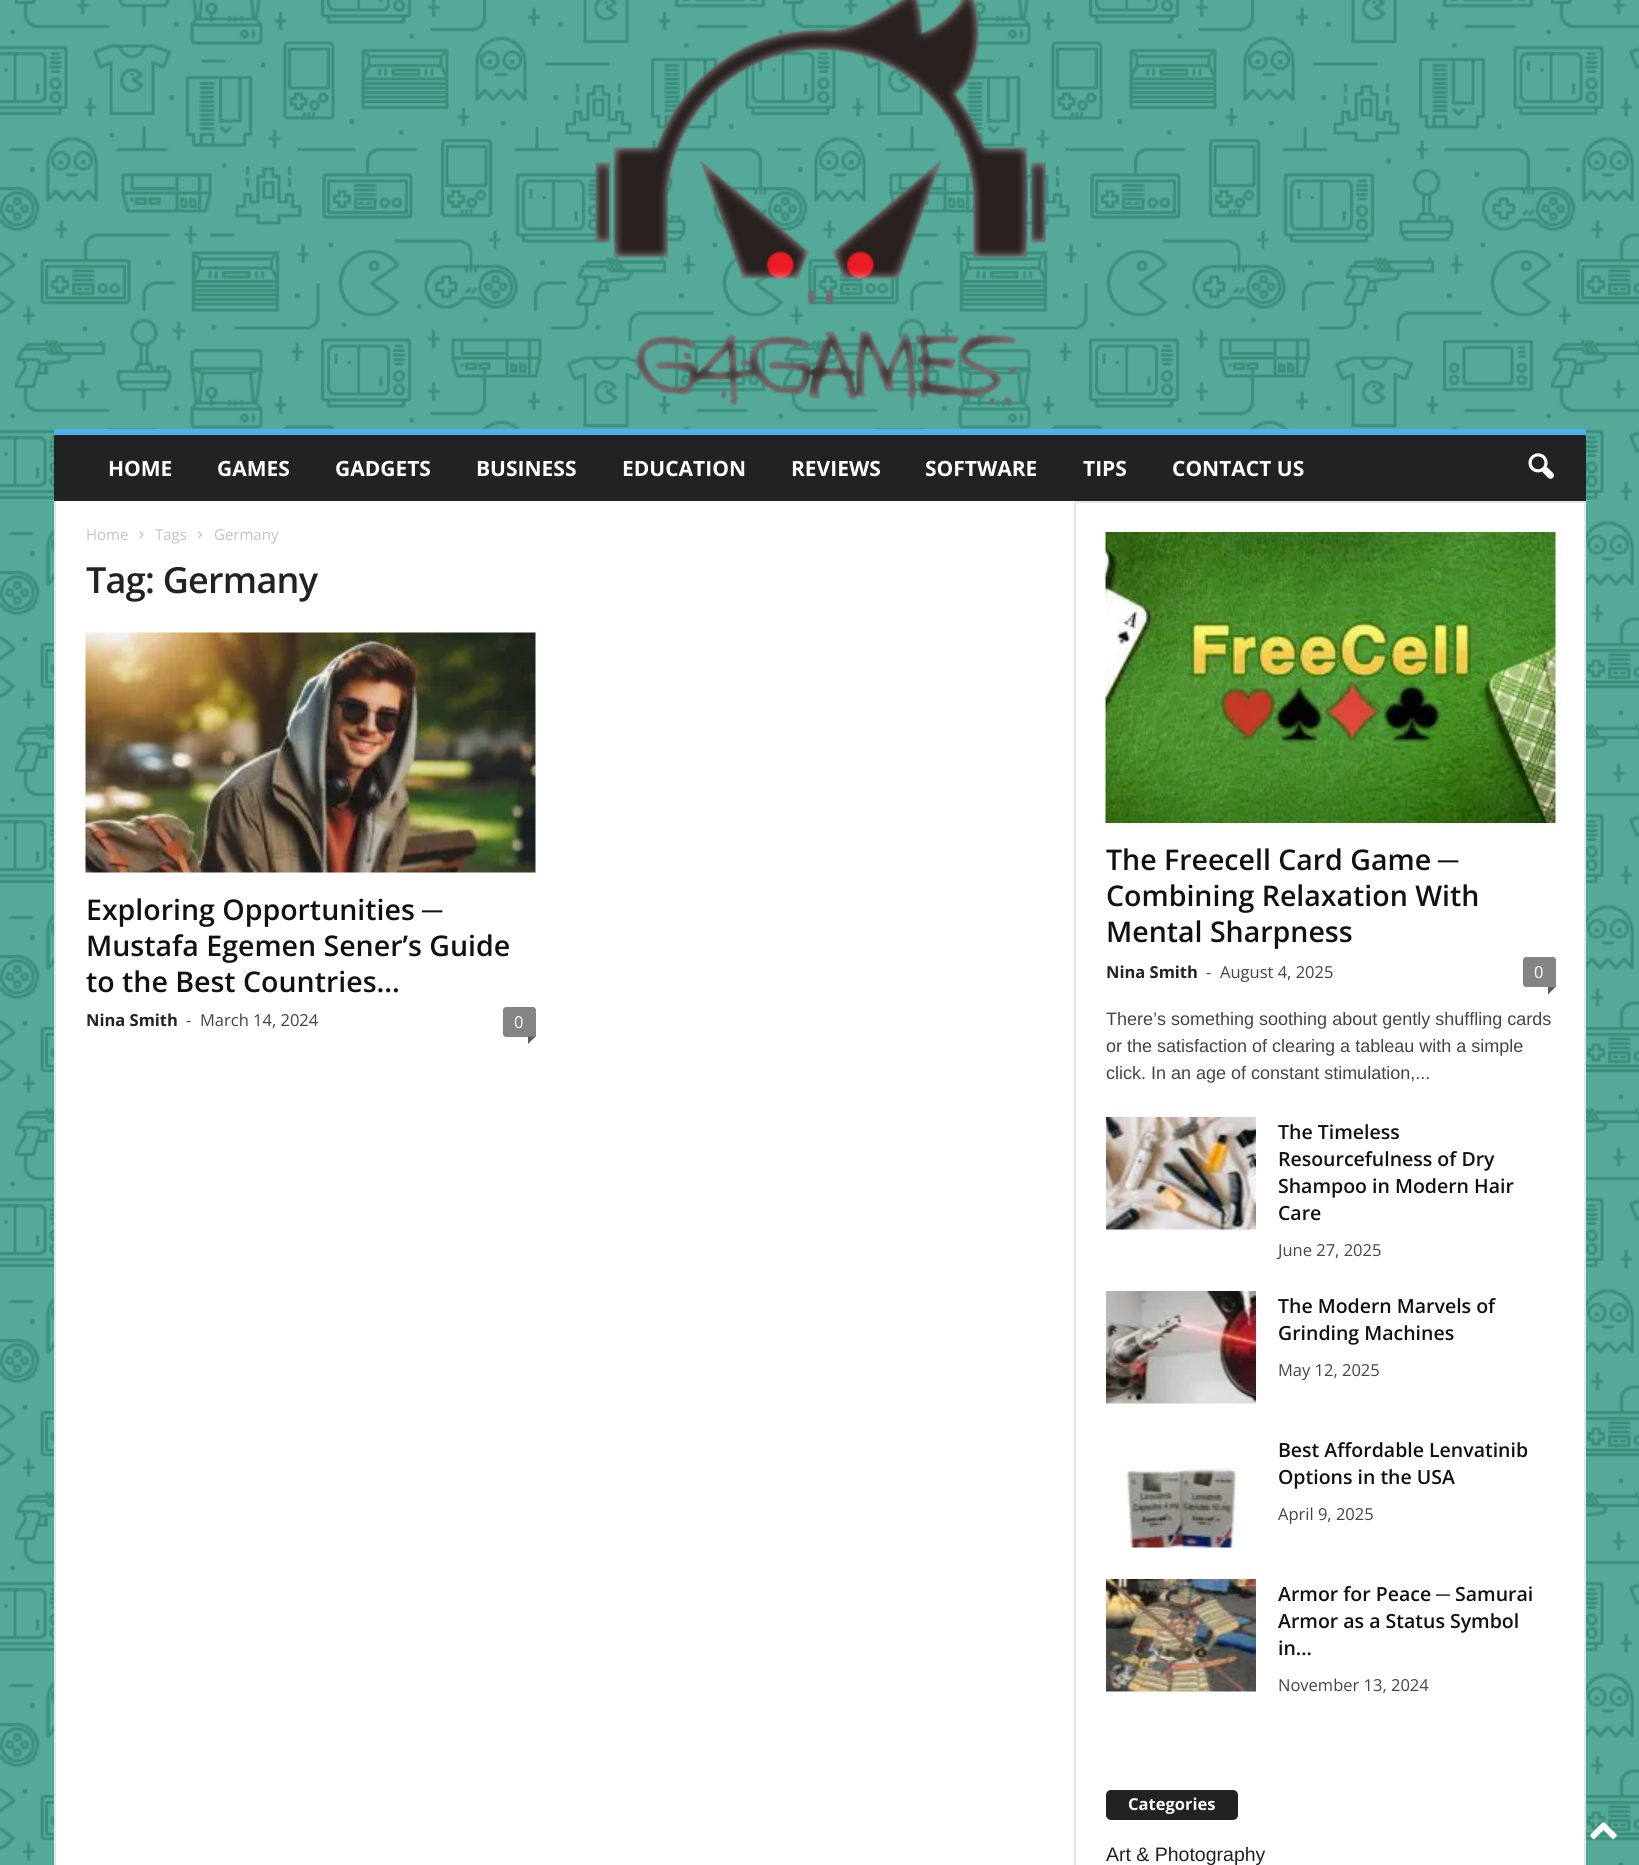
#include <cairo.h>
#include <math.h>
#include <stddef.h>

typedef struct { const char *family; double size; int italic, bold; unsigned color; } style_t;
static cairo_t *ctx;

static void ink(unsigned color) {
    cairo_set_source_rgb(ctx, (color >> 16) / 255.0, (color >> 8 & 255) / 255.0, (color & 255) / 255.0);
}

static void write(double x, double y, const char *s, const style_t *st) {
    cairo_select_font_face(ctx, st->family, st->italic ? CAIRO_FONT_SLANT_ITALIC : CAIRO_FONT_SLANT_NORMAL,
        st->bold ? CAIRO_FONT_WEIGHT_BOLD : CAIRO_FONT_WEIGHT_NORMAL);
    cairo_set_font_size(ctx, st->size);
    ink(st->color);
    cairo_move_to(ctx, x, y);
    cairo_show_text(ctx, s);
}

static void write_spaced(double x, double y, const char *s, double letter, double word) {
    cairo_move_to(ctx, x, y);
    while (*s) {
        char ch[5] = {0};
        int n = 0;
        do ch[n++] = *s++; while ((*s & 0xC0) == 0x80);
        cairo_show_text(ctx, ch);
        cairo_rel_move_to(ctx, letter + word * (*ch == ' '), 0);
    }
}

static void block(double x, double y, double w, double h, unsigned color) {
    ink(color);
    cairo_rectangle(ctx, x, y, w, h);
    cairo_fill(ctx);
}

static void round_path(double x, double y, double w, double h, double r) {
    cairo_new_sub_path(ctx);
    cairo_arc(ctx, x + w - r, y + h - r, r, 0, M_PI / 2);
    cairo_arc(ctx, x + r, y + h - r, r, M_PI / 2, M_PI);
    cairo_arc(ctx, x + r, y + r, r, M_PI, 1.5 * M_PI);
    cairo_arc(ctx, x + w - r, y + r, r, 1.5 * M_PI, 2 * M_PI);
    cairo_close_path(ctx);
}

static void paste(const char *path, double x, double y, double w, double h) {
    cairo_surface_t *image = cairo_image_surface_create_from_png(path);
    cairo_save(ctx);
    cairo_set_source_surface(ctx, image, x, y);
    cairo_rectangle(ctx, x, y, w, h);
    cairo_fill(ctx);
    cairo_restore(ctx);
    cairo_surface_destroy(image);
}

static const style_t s1 = {"Open Sans", 21, 0, 1, 0xffffff};
static const style_t s2 = {"Open Sans", 15, 0, 0, 0xc3c3c3};
static const style_t s3 = {"Open Sans SemiBold", 28.5, 0, 0, 0x111111};
static const style_t s4 = {"Liberation Sans", 28.5, 0, 1, 0x111111};
static const style_t s5 = {"Open Sans", 16.5, 0, 1, 0x222222};
static const style_t s6 = {"Open Sans", 16.5, 0, 0, 0x444444};
static const style_t s7 = {"Open Sans", 16.5, 0, 0, 0xffffff};
static const style_t s8 = {"Liberation Sans", 18, 0, 0, 0x444444};
static const style_t s9 = {"Open Sans SemiBold", 19.5, 0, 0, 0x111111};
static const style_t s10 = {"Liberation Sans", 19.5, 0, 1, 0x111111};
static const style_t s11 = {"Open Sans", 16.5, 0, 1, 0xffffff};
static const style_t s12 = {"Liberation Sans", 19.5, 0, 0, 0x222222};

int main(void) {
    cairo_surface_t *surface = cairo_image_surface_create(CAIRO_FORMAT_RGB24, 1639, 1865);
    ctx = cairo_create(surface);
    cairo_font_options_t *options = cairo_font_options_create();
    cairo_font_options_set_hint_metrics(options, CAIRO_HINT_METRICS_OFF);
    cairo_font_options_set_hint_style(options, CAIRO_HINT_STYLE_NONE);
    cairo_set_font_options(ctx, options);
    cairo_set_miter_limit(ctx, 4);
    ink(0xffffff);
    cairo_paint(ctx);
    paste("pic1.png", 0, 0, 1639, 1865);
    paste("pic2.png", 595, 0, 451, 406);
    block(54, 435, 1532, 66, 0x222222);
    block(54, 429, 1532, 6, 0x4db2ec);
    write(108, 476, "HOME", &s1);
    write(217, 476, "GAMES", &s1);
    write(335, 476, "GADGETS", &s1);
    write(476, 476, "BUSINESS", &s1);
    write(622, 476, "EDUCATION", &s1);
    write(791, 476, "REVIEWS", &s1);
    write(925, 476, "SOFTWARE", &s1);
    write(1083, 476, "TIPS", &s1);
    write(1172, 476, "CONTACT US", &s1);
    paste("pic3.png", 1528, 453, 26, 26);
    block(56, 501, 1528, 1364, 0xffffff);
    block(54, 501, 2, 1364, 0xe6e6e6);
    write(86, 540, "Home", &s2);
    paste("pic4.png", 139, 531, 5, 8);
    write(155, 540, "Tags", &s2);
    paste("pic5.png", 198, 531, 4, 8);
    write(214, 540, "Germany", &s2);
    cairo_select_font_face(ctx, "Open Sans SemiBold", CAIRO_FONT_SLANT_NORMAL, CAIRO_FONT_WEIGHT_NORMAL);
    cairo_set_font_size(ctx, 36);
    ink(0x222222);
    write_spaced(86, 593, "Tag: Germany", -0.75, 0);
    paste("pic6.png", 85, 632, 451, 241);
    write(86, 920, "Exploring Opportunities", &s3);
    write(422, 920, "─", &s4);
    write(86, 956, "Mustafa Egemen Sener’s Guide", &s3);
    write(86, 992, "to the Best Countries...", &s3);
    write(86, 1026, "Nina Smith", &s5);
    write(186, 1026, "-", &s6);
    write(200, 1026, "March 14, 2024", &s6);
    ink(0x848484);
    cairo_new_path(ctx);
    cairo_move_to(ctx, 506, 1007);
    cairo_line_to(ctx, 533, 1007);
    cairo_curve_to(ctx, 534.5, 1007, 536, 1008.5, 536, 1010);
    cairo_line_to(ctx, 536, 1037);
    cairo_line_to(ctx, 506, 1037);
    cairo_curve_to(ctx, 504.5, 1037, 503, 1035.5, 503, 1034);
    cairo_line_to(ctx, 503, 1010);
    cairo_curve_to(ctx, 503, 1008.5, 504.5, 1007, 506, 1007);
    cairo_close_path(ctx);
    cairo_fill(ctx);
    write(514, 1028, "0", &s7);
    ink(0x5b5b5b);
    cairo_new_path(ctx);
    cairo_move_to(ctx, 528, 1036.5);
    cairo_line_to(ctx, 535.5, 1036.5);
    cairo_line_to(ctx, 528, 1044);
    cairo_close_path(ctx);
    cairo_fill(ctx);
    block(1074, 501, 2, 1364, 0xe6e6e6);
    block(1076, 501, 508, 2, 0xe6e6e6);
    paste("pic7.png", 1105, 532, 451, 291);
    write(1106, 870, "The Freecell Card Game", &s3);
    write(1438, 870, "─", &s4);
    write(1106, 906, "Combining Relaxation With", &s3);
    write(1106, 942, "Mental Sharpness", &s3);
    write(1106, 978, "Nina Smith", &s5);
    write(1206, 978, "-", &s6);
    write(1220, 978, "August 4, 2025", &s6);
    ink(0x848484);
    cairo_new_path(ctx);
    cairo_move_to(ctx, 1526, 957);
    cairo_line_to(ctx, 1553, 957);
    cairo_curve_to(ctx, 1554.5, 957, 1556, 958.5, 1556, 960);
    cairo_line_to(ctx, 1556, 987);
    cairo_line_to(ctx, 1526, 987);
    cairo_curve_to(ctx, 1524.5, 987, 1523, 985.5, 1523, 984);
    cairo_line_to(ctx, 1523, 960);
    cairo_curve_to(ctx, 1523, 958.5, 1524.5, 957, 1526, 957);
    cairo_close_path(ctx);
    cairo_fill(ctx);
    write(1534, 978, "0", &s7);
    ink(0x5b5b5b);
    cairo_new_path(ctx);
    cairo_move_to(ctx, 1548, 987);
    cairo_line_to(ctx, 1555.5, 987);
    cairo_line_to(ctx, 1548, 994.5);
    cairo_close_path(ctx);
    cairo_fill(ctx);
    write(1106, 1025, "There’s something soothing about gently shuffling cards", &s8);
    write(1106, 1052, "or the satisfaction of clearing a tableau with a simple", &s8);
    write(1106, 1079, "click. In an age of constant stimulation,...", &s8);
    paste("pic8.png", 1106, 1117, 150, 113);
    write(1278, 1139, "The Timeless", &s9);
    write(1278, 1166, "Resourcefulness of Dry", &s9);
    write(1278, 1193, "Shampoo in Modern Hair", &s9);
    write(1278, 1220, "Care", &s9);
    write(1278, 1256, "June 27, 2025", &s6);
    paste("pic9.png", 1106, 1291, 150, 113);
    write(1278, 1313, "The Modern Marvels of", &s9);
    write(1278, 1340, "Grinding Machines", &s9);
    write(1278, 1376, "May 12, 2025", &s6);
    paste("pic10.png", 1123, 1465, 117, 83);
    write(1278, 1457, "Best Affordable Lenvatinib", &s9);
    write(1278, 1484, "Options in the USA", &s9);
    write(1278, 1520, "April 9, 2025", &s6);
    paste("pic11.png", 1106, 1579, 150, 113);
    write(1278, 1601, "Armor for Peace", &s9);
    write(1436, 1601, "─", &s10);
    write(1455, 1601, "Samurai", &s9);
    write(1278, 1628, "Armor as a Status Symbol", &s9);
    write(1278, 1655, "in...", &s9);
    write(1278, 1691, "November 13, 2024", &s6);
    ink(0x222222);
    round_path(1106, 1790, 132, 30, 5);
    cairo_fill(ctx);
    write(1128, 1810, "Categories", &s11);
    write(1106, 1861, "Art & Photography", &s12);
    block(1584, 501, 2, 1364, 0xe6e6e6);
    paste("pic12.png", 1590, 1821, 27, 19);
    cairo_surface_write_to_png(surface, "screenshot.png");
    cairo_font_options_destroy(options);
    cairo_destroy(ctx);
    cairo_surface_destroy(surface);
    return 0;
}
